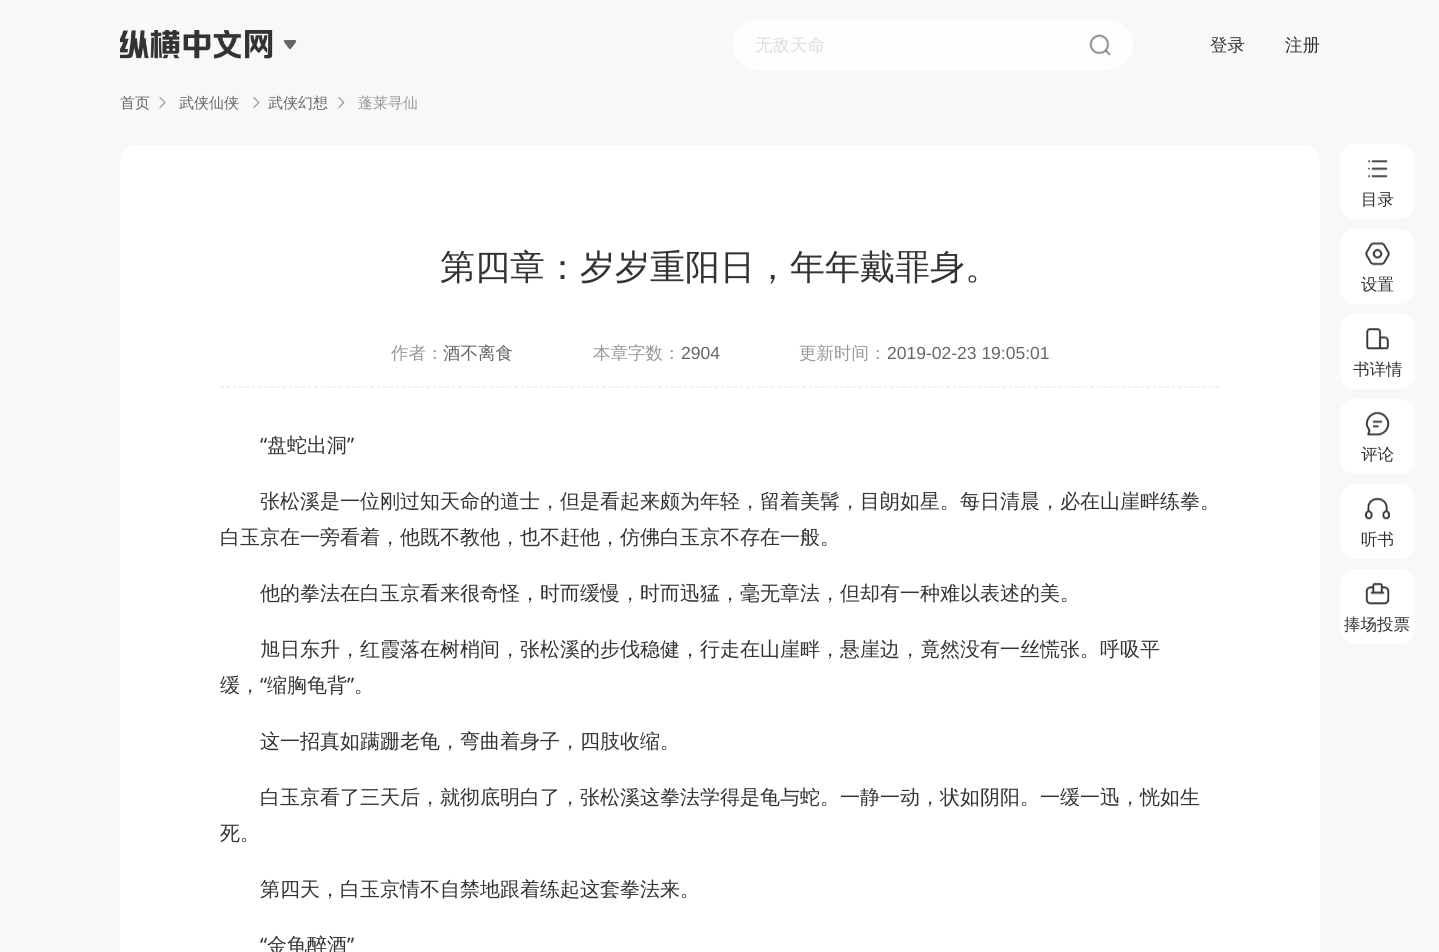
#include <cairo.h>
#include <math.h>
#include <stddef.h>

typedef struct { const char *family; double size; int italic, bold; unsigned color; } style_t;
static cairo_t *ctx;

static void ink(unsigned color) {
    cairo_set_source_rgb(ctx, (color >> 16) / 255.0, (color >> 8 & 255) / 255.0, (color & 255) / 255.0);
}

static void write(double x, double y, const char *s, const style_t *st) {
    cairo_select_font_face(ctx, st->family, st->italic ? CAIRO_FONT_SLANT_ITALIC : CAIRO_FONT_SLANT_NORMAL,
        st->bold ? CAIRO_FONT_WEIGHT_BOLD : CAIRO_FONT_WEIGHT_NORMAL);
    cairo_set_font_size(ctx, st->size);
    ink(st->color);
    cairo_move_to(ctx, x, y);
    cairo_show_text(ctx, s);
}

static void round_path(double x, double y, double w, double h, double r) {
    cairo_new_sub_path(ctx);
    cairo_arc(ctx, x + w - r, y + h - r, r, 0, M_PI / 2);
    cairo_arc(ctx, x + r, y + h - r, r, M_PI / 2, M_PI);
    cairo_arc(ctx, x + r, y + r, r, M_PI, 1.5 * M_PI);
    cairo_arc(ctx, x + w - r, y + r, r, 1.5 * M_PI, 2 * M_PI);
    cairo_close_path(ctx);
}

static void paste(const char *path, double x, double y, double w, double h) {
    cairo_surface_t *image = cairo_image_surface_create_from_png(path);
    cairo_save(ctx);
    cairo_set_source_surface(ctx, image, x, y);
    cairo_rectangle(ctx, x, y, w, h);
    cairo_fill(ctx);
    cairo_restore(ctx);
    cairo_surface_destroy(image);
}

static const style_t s1 = {"WenQuanYi Zen Hei Medium", 17.5, 0, 0, 0xdcdddf};
static const style_t s2 = {"WenQuanYi Zen Hei Medium", 17.5, 0, 0, 0x333333};
static const style_t s3 = {"WenQuanYi Zen Hei Medium", 15, 0, 0, 0x666666};
static const style_t s4 = {"WenQuanYi Zen Hei Medium", 15, 0, 0, 0x999999};
static const style_t s5 = {"WenQuanYi Zen Hei Medium", 35, 0, 0, 0x333333};
static const style_t s6 = {"WenQuanYi Zen Hei Medium", 17.5, 0, 0, 0x999999};
static const style_t s7 = {"WenQuanYi Zen Hei Medium", 17.5, 0, 0, 0x666666};
static const style_t s8 = {"Liberation Sans", 17.5, 0, 0, 0x666666};
static const style_t s9 = {"Noto Sans", 20, 0, 0, 0x333333};
static const style_t s10 = {"WenQuanYi Zen Hei Medium", 20, 0, 0, 0x333333};
static const style_t s11 = {"WenQuanYi Zen Hei Medium", 16.5, 0, 0, 0x333333};

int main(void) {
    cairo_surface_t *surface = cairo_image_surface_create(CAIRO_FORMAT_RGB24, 1439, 952);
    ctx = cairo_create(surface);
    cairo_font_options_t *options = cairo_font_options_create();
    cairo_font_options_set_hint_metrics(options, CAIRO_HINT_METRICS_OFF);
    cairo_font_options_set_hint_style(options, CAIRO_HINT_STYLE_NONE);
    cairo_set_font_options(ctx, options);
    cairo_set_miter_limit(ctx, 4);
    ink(0xf6f8fa);
    cairo_paint(ctx);
    paste("pic1.png", 120, 30, 153, 29);
    paste("pic2.png", 283, 40, 14, 10);
    ink(0xfdfefe);
    round_path(733, 20, 400, 50, 25);
    cairo_fill(ctx);
    write(755, 51, "无敌天命", &s1);
    paste("pic3.png", 1089, 34, 22, 22);
    write(1210, 51, "登录", &s2);
    write(1285, 51, "注册", &s2);
    write(120, 108, "首页", &s3);
    paste("pic4.png", 159, 97, 7, 11);
    write(179, 108, "武侠仙侠", &s3);
    paste("pic5.png", 253, 97, 7, 11);
    write(268, 108, "武侠幻想", &s3);
    paste("pic6.png", 338, 97, 7, 11);
    write(358, 108, "蓬莱寻仙", &s4);
    ink(0xffffff);
    round_path(120, 145, 1200, 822, 15);
    cairo_fill(ctx);
    write(440, 279, "第四章：岁岁重阳日，年年戴罪身。", &s5);
    write(391, 359, "作者：", &s6);
    write(443, 359, "酒不离食", &s7);
    write(593, 359, "本章字数：", &s6);
    write(681, 359, "2904", &s8);
    write(799, 359, "更新时间：", &s6);
    write(887, 359, "2019-02-23 19:05:01", &s8);
    cairo_new_path(ctx);
    cairo_move_to(ctx, 220, 387);
    cairo_line_to(ctx, 1220, 387);
    ink(0xe7e7e7);
    cairo_set_line_width(ctx, 1.2);
    cairo_set_dash(ctx, (double[]){3.75, 2.51}, 2, 0);
    cairo_stroke(ctx);
    write(260, 452, "“", &s9);
    write(267, 452, "盘蛇出洞", &s10);
    write(347, 452, "”", &s9);
    write(260, 508, "张松溪是一位刚过知天命的道士，但是看起来颇为年轻，留着美髯，目朗如星。每日清晨，必在山崖畔练拳。", &s10);
    write(220, 544, "白玉京在一旁看着，他既不教他，也不赶他，仿佛白玉京不存在一般。", &s10);
    write(260, 600, "他的拳法在白玉京看来很奇怪，时而缓慢，时而迅猛，毫无章法，但却有一种难以表述的美。", &s10);
    write(260, 656, "旭日东升，红霞落在树梢间，张松溪的步伐稳健，行走在山崖畔，悬崖边，竟然没有一丝慌张。呼吸平", &s10);
    write(220, 692, "缓，", &s10);
    write(260, 692, "“", &s9);
    write(267, 692, "缩胸龟背", &s10);
    write(347, 692, "”", &s9);
    write(354, 692, "。", &s10);
    write(260, 748, "这一招真如蹒跚老龟，弯曲着身子，四肢收缩。", &s10);
    write(260, 804, "白玉京看了三天后，就彻底明白了，张松溪这拳法学得是龟与蛇。一静一动，状如阴阳。一缓一迅，恍如生", &s10);
    write(220, 840, "死。", &s10);
    write(260, 896, "第四天，白玉京情不自禁地跟着练起这套拳法来。", &s10);
    write(260, 952, "“", &s9);
    write(267, 952, "金龟醉酒", &s10);
    write(347, 952, "”", &s9);
    ink(0xffffff);
    round_path(1340, 144, 75, 75, 15);
    cairo_fill(ctx);
    paste("pic7.png", 1368, 160, 20, 18);
    write(1361, 205, "目录", &s11);
    ink(0xffffff);
    round_path(1340, 229, 75, 75, 15);
    cairo_fill(ctx);
    paste("pic8.png", 1365, 242, 25, 24);
    write(1361, 290, "设置", &s11);
    ink(0xffffff);
    round_path(1340, 314, 75, 75, 15);
    cairo_fill(ctx);
    paste("pic9.png", 1366, 328, 23, 22);
    write(1353, 375, "书详情", &s11);
    ink(0xffffff);
    round_path(1340, 399, 75, 75, 15);
    cairo_fill(ctx);
    paste("pic10.png", 1365, 411, 25, 26);
    write(1361, 460, "评论", &s11);
    ink(0xffffff);
    round_path(1340, 484, 75, 75, 15);
    cairo_fill(ctx);
    paste("pic11.png", 1365, 497, 25, 23);
    write(1361, 545, "听书", &s11);
    ink(0xffffff);
    round_path(1340, 569, 75, 75, 15);
    cairo_fill(ctx);
    paste("pic12.png", 1365, 582, 25, 23);
    write(1344, 630, "捧场投票", &s11);
    cairo_surface_write_to_png(surface, "screenshot.png");
    cairo_font_options_destroy(options);
    cairo_destroy(ctx);
    cairo_surface_destroy(surface);
    return 0;
}
